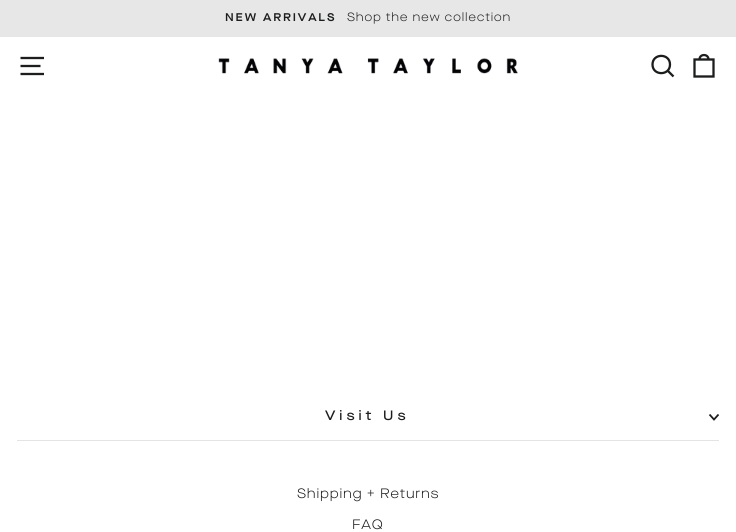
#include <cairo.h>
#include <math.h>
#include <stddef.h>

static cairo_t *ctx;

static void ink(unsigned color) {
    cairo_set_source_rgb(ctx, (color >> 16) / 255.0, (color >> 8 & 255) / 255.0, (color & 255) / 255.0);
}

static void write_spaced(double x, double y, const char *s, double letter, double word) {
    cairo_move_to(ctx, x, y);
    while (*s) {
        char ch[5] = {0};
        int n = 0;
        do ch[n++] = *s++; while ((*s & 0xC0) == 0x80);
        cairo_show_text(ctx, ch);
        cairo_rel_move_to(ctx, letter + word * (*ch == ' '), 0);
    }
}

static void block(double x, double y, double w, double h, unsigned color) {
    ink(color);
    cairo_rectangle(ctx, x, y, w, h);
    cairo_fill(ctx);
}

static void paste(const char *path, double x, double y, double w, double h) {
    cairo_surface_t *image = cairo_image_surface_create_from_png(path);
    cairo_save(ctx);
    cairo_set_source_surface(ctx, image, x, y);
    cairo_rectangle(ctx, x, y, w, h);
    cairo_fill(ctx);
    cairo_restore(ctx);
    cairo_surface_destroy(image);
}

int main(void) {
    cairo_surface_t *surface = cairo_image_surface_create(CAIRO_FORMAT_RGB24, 736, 532);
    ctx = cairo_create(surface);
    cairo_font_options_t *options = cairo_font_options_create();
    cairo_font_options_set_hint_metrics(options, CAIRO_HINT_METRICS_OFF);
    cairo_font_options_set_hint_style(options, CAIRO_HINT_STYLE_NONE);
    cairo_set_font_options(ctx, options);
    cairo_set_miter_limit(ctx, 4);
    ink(0xffffff);
    cairo_paint(ctx);
    block(0, 0, 736, 37, 0xe7e7e7);
    cairo_select_font_face(ctx, "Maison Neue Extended", CAIRO_FONT_SLANT_NORMAL, CAIRO_FONT_WEIGHT_BOLD);
    cairo_set_font_size(ctx, 10.75);
    ink(0x1c1d1d);
    write_spaced(225, 21, "NEW ARRIVALS", 2.2, 0);
    cairo_select_font_face(ctx, "Maison Neue Extended Light", CAIRO_FONT_SLANT_NORMAL, CAIRO_FONT_WEIGHT_NORMAL);
    cairo_set_font_size(ctx, 12);
    write_spaced(347, 21, "Shop the new collection", 0.75, 0);
    cairo_new_path(ctx);
    cairo_move_to(ctx, 20.5, 58);
    cairo_line_to(ctx, 44, 58);
    cairo_move_to(ctx, 20.5, 66);
    cairo_line_to(ctx, 40.5, 66);
    cairo_move_to(ctx, 20.5, 74);
    cairo_line_to(ctx, 44, 74);
    cairo_set_line_width(ctx, 2.3);
    cairo_stroke(ctx);
    paste("pic1.png", 218, 58, 300, 16);
    cairo_new_path(ctx);
    cairo_move_to(ctx, 670, 64.5);
    cairo_curve_to(ctx, 670, 76, 652.5, 76, 652.5, 64.5);
    cairo_curve_to(ctx, 652.5, 53, 670, 53, 670, 64.5);
    cairo_close_path(ctx);
    cairo_move_to(ctx, 673.5, 76.5);
    cairo_line_to(ctx, 667.5, 70.5);
    cairo_stroke(ctx);
    cairo_new_path(ctx);
    cairo_move_to(ctx, 694.5, 59.5);
    cairo_line_to(ctx, 713.5, 59.5);
    cairo_line_to(ctx, 713.5, 76.5);
    cairo_line_to(ctx, 694.5, 76.5);
    cairo_close_path(ctx);
    cairo_move_to(ctx, 699.5, 59.5);
    cairo_curve_to(ctx, 699.5, 53.5, 708.5, 53.5, 708.5, 59.5);
    cairo_stroke(ctx);
    cairo_select_font_face(ctx, "Maison Neue Extended Medium", CAIRO_FONT_SLANT_NORMAL, CAIRO_FONT_WEIGHT_NORMAL);
    cairo_set_font_size(ctx, 13.6);
    write_spaced(325, 420, "Visit Us", 4, 0);
    cairo_new_path(ctx);
    cairo_move_to(ctx, 709.5, 414.5);
    cairo_line_to(ctx, 714, 419.5);
    cairo_line_to(ctx, 718.5, 414.5);
    cairo_set_line_width(ctx, 1.8);
    cairo_stroke(ctx);
    block(17, 440, 702, 1, 0xe4e4e4);
    cairo_select_font_face(ctx, "Maison Neue Extended Light", CAIRO_FONT_SLANT_NORMAL, CAIRO_FONT_WEIGHT_NORMAL);
    ink(0x1c1d1d);
    write_spaced(297, 498, "Shipping + Returns", 0.75, 0);
    write_spaced(352, 529, "FAQ", 0.75, 0);
    cairo_surface_write_to_png(surface, "screenshot.png");
    cairo_font_options_destroy(options);
    cairo_destroy(ctx);
    cairo_surface_destroy(surface);
    return 0;
}
